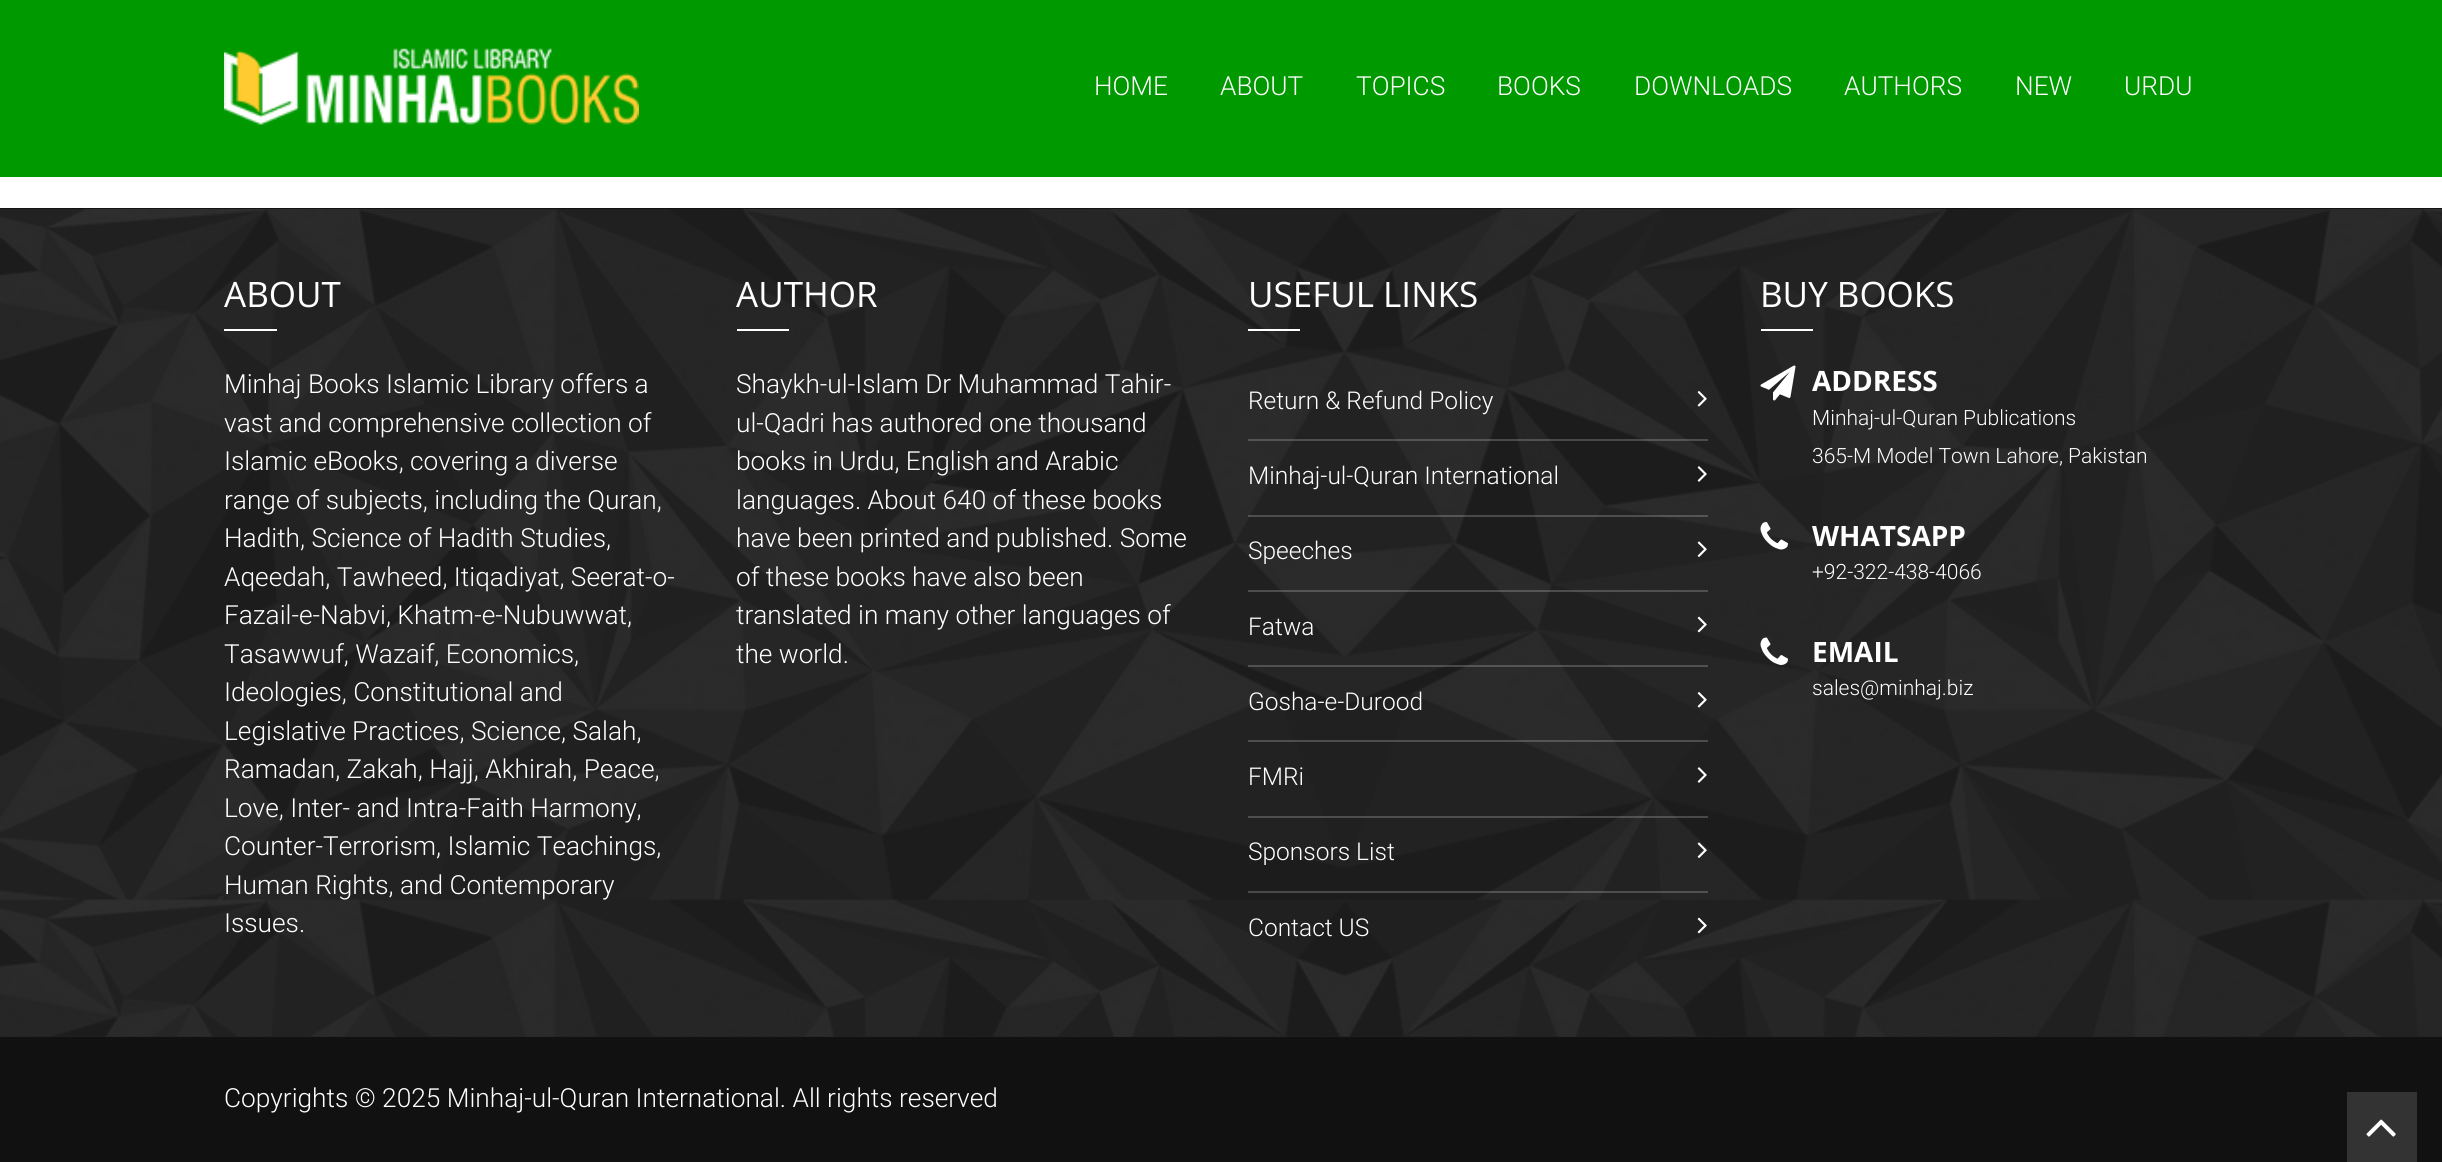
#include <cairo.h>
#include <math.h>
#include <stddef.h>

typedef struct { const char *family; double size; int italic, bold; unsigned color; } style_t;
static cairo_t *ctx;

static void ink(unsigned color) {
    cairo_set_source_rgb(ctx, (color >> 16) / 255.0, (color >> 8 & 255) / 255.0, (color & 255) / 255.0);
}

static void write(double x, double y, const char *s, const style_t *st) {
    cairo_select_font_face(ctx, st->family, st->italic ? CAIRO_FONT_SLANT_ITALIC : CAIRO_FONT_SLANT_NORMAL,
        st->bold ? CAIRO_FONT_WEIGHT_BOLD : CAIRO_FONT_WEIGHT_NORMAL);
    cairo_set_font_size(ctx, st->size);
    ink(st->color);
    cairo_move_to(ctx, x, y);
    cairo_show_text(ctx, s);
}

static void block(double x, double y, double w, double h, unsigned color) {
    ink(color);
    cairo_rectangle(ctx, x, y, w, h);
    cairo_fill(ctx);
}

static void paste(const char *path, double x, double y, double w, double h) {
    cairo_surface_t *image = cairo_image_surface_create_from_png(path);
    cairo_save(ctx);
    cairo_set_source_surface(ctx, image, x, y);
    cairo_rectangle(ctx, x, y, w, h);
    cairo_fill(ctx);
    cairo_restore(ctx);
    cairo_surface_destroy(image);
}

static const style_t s1 = {"Roboto Light", 26.25, 0, 0, 0xffffff};
static const style_t s2 = {"Open Sans", 35, 0, 0, 0xffffff};
static const style_t s3 = {"Roboto Light", 24.5, 0, 0, 0xffffff};
static const style_t s4 = {"Open Sans", 28, 0, 1, 0xffffff};
static const style_t s5 = {"Roboto Light", 21, 0, 0, 0xffffff};

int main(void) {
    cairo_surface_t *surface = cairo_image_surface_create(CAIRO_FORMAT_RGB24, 2442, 1162);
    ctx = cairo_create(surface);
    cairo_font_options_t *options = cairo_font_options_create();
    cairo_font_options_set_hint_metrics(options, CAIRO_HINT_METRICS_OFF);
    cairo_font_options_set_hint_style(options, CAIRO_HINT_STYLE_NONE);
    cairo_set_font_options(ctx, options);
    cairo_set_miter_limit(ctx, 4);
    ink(0xffffff);
    cairo_paint(ctx);
    block(0, 0, 2442, 177, 0x009900);
    paste("pic1.png", 224, 48, 415, 77);
    write(1094, 95, "HOME", &s1);
    write(1220, 95, "ABOUT", &s1);
    write(1356, 95, "TOPICS", &s1);
    write(1497, 95, "BOOKS", &s1);
    write(1634, 95, "DOWNLOADS", &s1);
    write(1844, 95, "AUTHORS", &s1);
    write(2015, 95, "NEW", &s1);
    write(2124, 95, "URDU", &s1);
    block(0, 208, 2442, 1, 0x000000);
    block(0, 1036, 2442, 126, 0x111111);
    paste("pic2.png", 0, 208, 2442, 829);
    write(224, 307, "ABOUT", &s2);
    block(224, 329, 53, 2, 0xffffff);
    write(224, 393, "Minhaj Books Islamic Library offers a", &s1);
    write(224, 432, "vast and comprehensive collection of", &s1);
    write(224, 470, "Islamic eBooks, covering a diverse", &s1);
    write(224, 509, "range of subjects, including the Quran,", &s1);
    write(224, 547, "Hadith, Science of Hadith Studies,", &s1);
    write(224, 586, "Aqeedah, Tawheed, Itiqadiyat, Seerat-o-", &s1);
    write(224, 624, "Fazail-e-Nabvi, Khatm-e-Nubuwwat,", &s1);
    write(224, 663, "Tasawwuf, Wazaif, Economics,", &s1);
    write(224, 701, "Ideologies, Constitutional and", &s1);
    write(224, 740, "Legislative Practices, Science, Salah,", &s1);
    write(224, 778, "Ramadan, Zakah, Hajj, Akhirah, Peace,", &s1);
    write(224, 817, "Love, Inter- and Intra-Faith Harmony,", &s1);
    write(224, 855, "Counter-Terrorism, Islamic Teachings,", &s1);
    write(224, 894, "Human Rights, and Contemporary", &s1);
    write(224, 932, "Issues.", &s1);
    write(736, 307, "AUTHOR", &s2);
    block(737, 329, 52, 2, 0xffffff);
    write(736, 393, "Shaykh-ul-Islam Dr Muhammad Tahir-", &s1);
    write(736, 432, "ul-Qadri has authored one thousand", &s1);
    write(736, 470, "books in Urdu, English and Arabic", &s1);
    write(736, 509, "languages. About 640 of these books", &s1);
    write(736, 547, "have been printed and published. Some", &s1);
    write(736, 586, "of these books have also been", &s1);
    write(736, 624, "translated in many other languages of", &s1);
    write(736, 663, "the world.", &s1);
    write(1248, 307, "USEFUL LINKS", &s2);
    block(1248, 329, 52, 2, 0xffffff);
    write(1248, 409, "Return & Refund Policy", &s3);
    paste("pic3.png", 1697, 391, 10, 16);
    cairo_set_source_rgba(ctx, 1, 1, 1, 0.2);
    cairo_rectangle(ctx, 1248, 439, 460, 2);
    cairo_fill(ctx);
    write(1248, 484, "Minhaj-ul-Quran International", &s3);
    paste("pic4.png", 1697, 466, 10, 16);
    cairo_set_source_rgba(ctx, 1, 1, 1, 0.2);
    cairo_rectangle(ctx, 1248, 515, 460, 2);
    cairo_fill(ctx);
    write(1248, 559, "Speeches", &s3);
    paste("pic5.png", 1697, 541, 10, 16);
    cairo_set_source_rgba(ctx, 1, 1, 1, 0.2);
    cairo_rectangle(ctx, 1248, 590, 460, 2);
    cairo_fill(ctx);
    write(1248, 635, "Fatwa", &s3);
    paste("pic6.png", 1697, 616, 10, 17);
    cairo_set_source_rgba(ctx, 1, 1, 1, 0.2);
    cairo_rectangle(ctx, 1248, 665, 460, 2);
    cairo_fill(ctx);
    write(1248, 710, "Gosha-e-Durood", &s3);
    paste("pic7.png", 1697, 692, 10, 16);
    cairo_set_source_rgba(ctx, 1, 1, 1, 0.2);
    cairo_rectangle(ctx, 1248, 740, 460, 2);
    cairo_fill(ctx);
    write(1248, 785, "FMRi", &s3);
    paste("pic8.png", 1697, 767, 10, 16);
    cairo_set_source_rgba(ctx, 1, 1, 1, 0.2);
    cairo_rectangle(ctx, 1248, 816, 460, 2);
    cairo_fill(ctx);
    write(1248, 860, "Sponsors List", &s3);
    paste("pic9.png", 1697, 842, 10, 16);
    cairo_set_source_rgba(ctx, 1, 1, 1, 0.2);
    cairo_rectangle(ctx, 1248, 891, 460, 2);
    cairo_fill(ctx);
    write(1248, 936, "Contact US", &s3);
    paste("pic10.png", 1697, 917, 10, 17);
    write(1760, 307, "BUY BOOKS", &s2);
    block(1761, 329, 52, 2, 0xffffff);
    paste("pic11.png", 1760, 365, 36, 36);
    write(1812, 391, "ADDRESS", &s4);
    write(1812, 425, "Minhaj-ul-Quran Publications", &s5);
    write(1812, 463, "365-M Model Town Lahore, Pakistan", &s5);
    paste("pic12.png", 1760, 522, 28, 28);
    write(1812, 546, "WHATSAPP", &s4);
    write(1812, 579, "+92-322-438-4066", &s5);
    paste("pic13.png", 1760, 637, 28, 28);
    write(1812, 662, "EMAIL", &s4);
    write(1812, 695, "sales@minhaj.biz", &s5);
    write(224, 1107, "Copyrights © 2025 Minhaj-ul-Quran International. All rights reserved", &s1);
    block(2347, 1092, 70, 70, 0x333333);
    paste("pic14.png", 2366, 1119, 30, 18);
    cairo_surface_write_to_png(surface, "screenshot.png");
    cairo_font_options_destroy(options);
    cairo_destroy(ctx);
    cairo_surface_destroy(surface);
    return 0;
}
